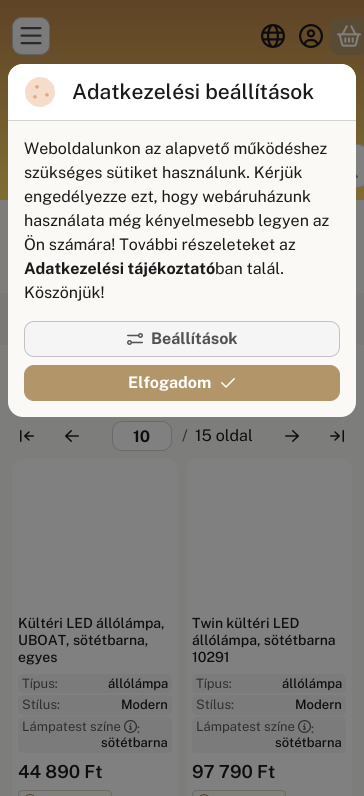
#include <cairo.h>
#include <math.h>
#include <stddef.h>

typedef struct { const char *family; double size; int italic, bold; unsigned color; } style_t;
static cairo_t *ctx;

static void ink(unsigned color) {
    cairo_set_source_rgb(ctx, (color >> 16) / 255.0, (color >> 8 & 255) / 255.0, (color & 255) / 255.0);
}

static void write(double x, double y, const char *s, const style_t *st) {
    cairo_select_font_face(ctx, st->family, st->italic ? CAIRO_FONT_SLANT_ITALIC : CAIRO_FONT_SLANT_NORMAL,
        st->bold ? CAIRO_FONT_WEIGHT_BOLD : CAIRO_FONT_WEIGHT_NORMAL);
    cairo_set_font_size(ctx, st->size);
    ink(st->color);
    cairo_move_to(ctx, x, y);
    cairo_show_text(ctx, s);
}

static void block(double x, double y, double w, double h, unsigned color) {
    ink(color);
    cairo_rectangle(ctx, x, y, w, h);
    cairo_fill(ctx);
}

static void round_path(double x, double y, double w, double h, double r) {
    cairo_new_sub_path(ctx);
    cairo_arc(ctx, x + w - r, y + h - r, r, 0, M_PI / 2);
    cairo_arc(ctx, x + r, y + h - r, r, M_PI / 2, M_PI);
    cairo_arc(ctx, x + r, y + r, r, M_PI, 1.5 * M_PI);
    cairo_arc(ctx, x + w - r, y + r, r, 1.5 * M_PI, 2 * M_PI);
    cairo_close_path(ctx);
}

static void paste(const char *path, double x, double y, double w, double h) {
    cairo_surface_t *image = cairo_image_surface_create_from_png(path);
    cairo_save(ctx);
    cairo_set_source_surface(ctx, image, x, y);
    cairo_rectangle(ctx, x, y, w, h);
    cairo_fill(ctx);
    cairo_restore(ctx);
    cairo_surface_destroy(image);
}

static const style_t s1 = {"Public Sans Medium", 21, 0, 0, 0x1a1a1a};
static const style_t s2 = {"Public Sans", 16, 0, 0, 0x1a1a1a};
static const style_t s3 = {"Public Sans", 16, 0, 1, 0x1a1a1a};
static const style_t s4 = {"Public Sans", 16, 0, 1, 0x525252};
static const style_t s5 = {"Public Sans", 16, 0, 1, 0xffffff};
static const style_t s6 = {"Public Sans", 16, 0, 1, 0x0d0d0d};
static const style_t s7 = {"Public Sans", 16, 0, 0, 0x2f2f2e};
static const style_t s8 = {"Public Sans", 16, 0, 0, 0x0d0d0d};
static const style_t s9 = {"Public Sans Medium", 14, 0, 0, 0x0d0d0d};
static const style_t s10 = {"Public Sans", 13, 0, 0, 0x2f2f2e};
static const style_t s11 = {"Public Sans Medium", 13, 0, 0, 0x0d0d0d};
static const style_t s12 = {"Public Sans SemiBold", 18, 0, 0, 0x0d0d0d};

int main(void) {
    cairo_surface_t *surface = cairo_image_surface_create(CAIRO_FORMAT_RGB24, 364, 796);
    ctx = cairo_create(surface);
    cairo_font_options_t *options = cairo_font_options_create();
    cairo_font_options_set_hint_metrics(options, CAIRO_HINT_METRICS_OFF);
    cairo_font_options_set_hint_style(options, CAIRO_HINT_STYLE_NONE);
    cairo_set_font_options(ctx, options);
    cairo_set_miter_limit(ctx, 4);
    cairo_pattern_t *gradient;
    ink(0x7d7d7b);
    cairo_paint(ctx);
    gradient = cairo_pattern_create_linear(182, 0, 182, 200);
    cairo_pattern_add_color_stop_rgba(gradient, 0, 0.369, 0.263, 0.149, 1);
    cairo_pattern_add_color_stop_rgba(gradient, 1, 0.502, 0.427, 0.2, 1);
    cairo_set_source(ctx, gradient);
    cairo_pattern_destroy(gradient);
    cairo_rectangle(ctx, 0, 0, 364, 200);
    cairo_fill(ctx);
    ink(0x7b7b7b);
    round_path(12.5, 17.5, 37, 37, 9.5);
    cairo_fill_preserve(ctx);
    ink(0x616161);
    cairo_set_line_width(ctx, 1);
    cairo_stroke(ctx);
    paste("pic1.png", 20, 27, 22, 18);
    paste("pic2.png", 261, 24, 24, 24);
    paste("pic3.png", 299, 24, 24, 24);
    ink(0x594b34);
    round_path(330.5, 17.5, 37, 37, 9.5);
    cairo_fill_preserve(ctx);
    cairo_stroke(ctx);
    paste("pic4.png", 337, 25, 24, 22);
    ink(0x808080);
    round_path(12.5, 144.5, 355, 43, 9.5);
    cairo_fill_preserve(ctx);
    ink(0x6a6a6a);
    cairo_stroke(ctx);
    paste("pic5.png", 356, 174, 2, 4);
    block(0, 293, 364, 52, 0x7a7978);
    ink(0xfaf9f6);
    round_path(8, 64, 348, 353, 15);
    cairo_fill(ctx);
    ink(0xffffff);
    cairo_new_path(ctx);
    cairo_move_to(ctx, 23, 64);
    cairo_line_to(ctx, 341, 64);
    cairo_curve_to(ctx, 349.5, 64, 356, 70.5, 356, 79);
    cairo_line_to(ctx, 356, 121);
    cairo_line_to(ctx, 8, 121);
    cairo_line_to(ctx, 8, 79);
    cairo_curve_to(ctx, 8, 70.5, 14.5, 64, 23, 64);
    cairo_close_path(ctx);
    cairo_fill(ctx);
    block(8, 120, 348, 1, 0xd3d3d3);
    paste("pic6.png", 25, 77, 30, 30);
    write(72, 99, "Adatkezelési beállítások", &s1);
    write(24, 154, "Weboldalunkon az alapvető működéshez", &s2);
    write(24, 178, "szükséges sütiket használunk. Kérjük", &s2);
    write(24, 202, "engedélyezze ezt, hogy webáruházunk", &s2);
    write(24, 226, "használata még kényelmesebb legyen az", &s2);
    write(24, 250, "Ön számára! További részeleteket az", &s2);
    write(24, 274, "Adatkezelési tájékoztató", &s3);
    write(215, 274, "ban talál.", &s2);
    write(24, 298, "Köszönjük!", &s2);
    ink(0xf5f5f5);
    round_path(24.5, 321.5, 315, 35, 9.5);
    cairo_fill_preserve(ctx);
    ink(0xc2c2c2);
    cairo_stroke(ctx);
    paste("pic7.png", 127, 333, 16, 12);
    write(151, 344, "Beállítások", &s4);
    ink(0xb29568);
    round_path(24.5, 365.5, 315, 35, 9.5);
    cairo_fill_preserve(ctx);
    cairo_stroke(ctx);
    write(128, 388, "Elfogadom", &s5);
    paste("pic8.png", 221, 378, 14, 10);
    paste("pic9.png", 20, 430, 14, 12);
    paste("pic10.png", 65, 430, 14, 12);
    ink(0x808080);
    round_path(112.5, 421.5, 59, 29, 9.5);
    cairo_fill_preserve(ctx);
    ink(0x6a6a6a);
    cairo_stroke(ctx);
    write(133, 442, "10", &s6);
    write(182, 441, "/", &s7);
    write(195, 441, "15 oldal", &s8);
    paste("pic11.png", 285, 430, 14, 12);
    paste("pic12.png", 330, 430, 14, 12);
    ink(0x808080);
    round_path(12, 459, 166, 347, 10);
    cairo_fill(ctx);
    write(18, 628, "Kültéri LED állólámpa,", &s9);
    write(18, 645, "UBOAT, sötétbarna,", &s9);
    write(18, 662, "egyes", &s9);
    ink(0x7b7b7b);
    round_path(18, 674, 154, 19, 5);
    cairo_fill(ctx);
    write(22, 688, "Típus:", &s10);
    write(108, 688, "állólámpa", &s11);
    ink(0x7b7b7b);
    round_path(18, 695, 154, 20, 5);
    cairo_fill(ctx);
    write(22, 709, "Stílus:", &s10);
    write(121, 709, "Modern", &s11);
    ink(0x7b7b7b);
    round_path(18, 717, 154, 36, 5);
    cairo_fill(ctx);
    write(22, 731, "Lámpatest színe", &s10);
    paste("pic13.png", 124, 720, 13, 13);
    write(137, 733, ":", &s10);
    write(101, 747, "sötétbarna", &s11);
    write(18, 778, "44 890 Ft", &s12);
    round_path(18.5, 790.5, 93, 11, 4.5);
    ink(0x706b62);
    cairo_stroke(ctx);
    paste("pic14.png", 25, 794, 10, 2);
    ink(0x808080);
    round_path(186, 459, 166, 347, 10);
    cairo_fill(ctx);
    write(192, 628, "Twin kültéri LED", &s9);
    write(192, 645, "állólámpa, sötétbarna", &s9);
    write(192, 662, "10291", &s9);
    ink(0x7b7b7b);
    round_path(192, 674, 154, 19, 5);
    cairo_fill(ctx);
    write(196, 688, "Típus:", &s10);
    write(282, 688, "állólámpa", &s11);
    ink(0x7b7b7b);
    round_path(192, 695, 154, 20, 5);
    cairo_fill(ctx);
    write(196, 709, "Stílus:", &s10);
    write(295, 709, "Modern", &s11);
    ink(0x7b7b7b);
    round_path(192, 717, 154, 36, 5);
    cairo_fill(ctx);
    write(196, 731, "Lámpatest színe", &s10);
    paste("pic13.png", 298, 720, 13, 13);
    write(311, 733, ":", &s10);
    write(275, 747, "sötétbarna", &s11);
    write(192, 778, "97 790 Ft", &s12);
    round_path(192.5, 790.5, 93, 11, 4.5);
    ink(0x706b62);
    cairo_stroke(ctx);
    paste("pic14.png", 199, 794, 10, 2);
    cairo_surface_write_to_png(surface, "screenshot.png");
    cairo_font_options_destroy(options);
    cairo_destroy(ctx);
    cairo_surface_destroy(surface);
    return 0;
}
